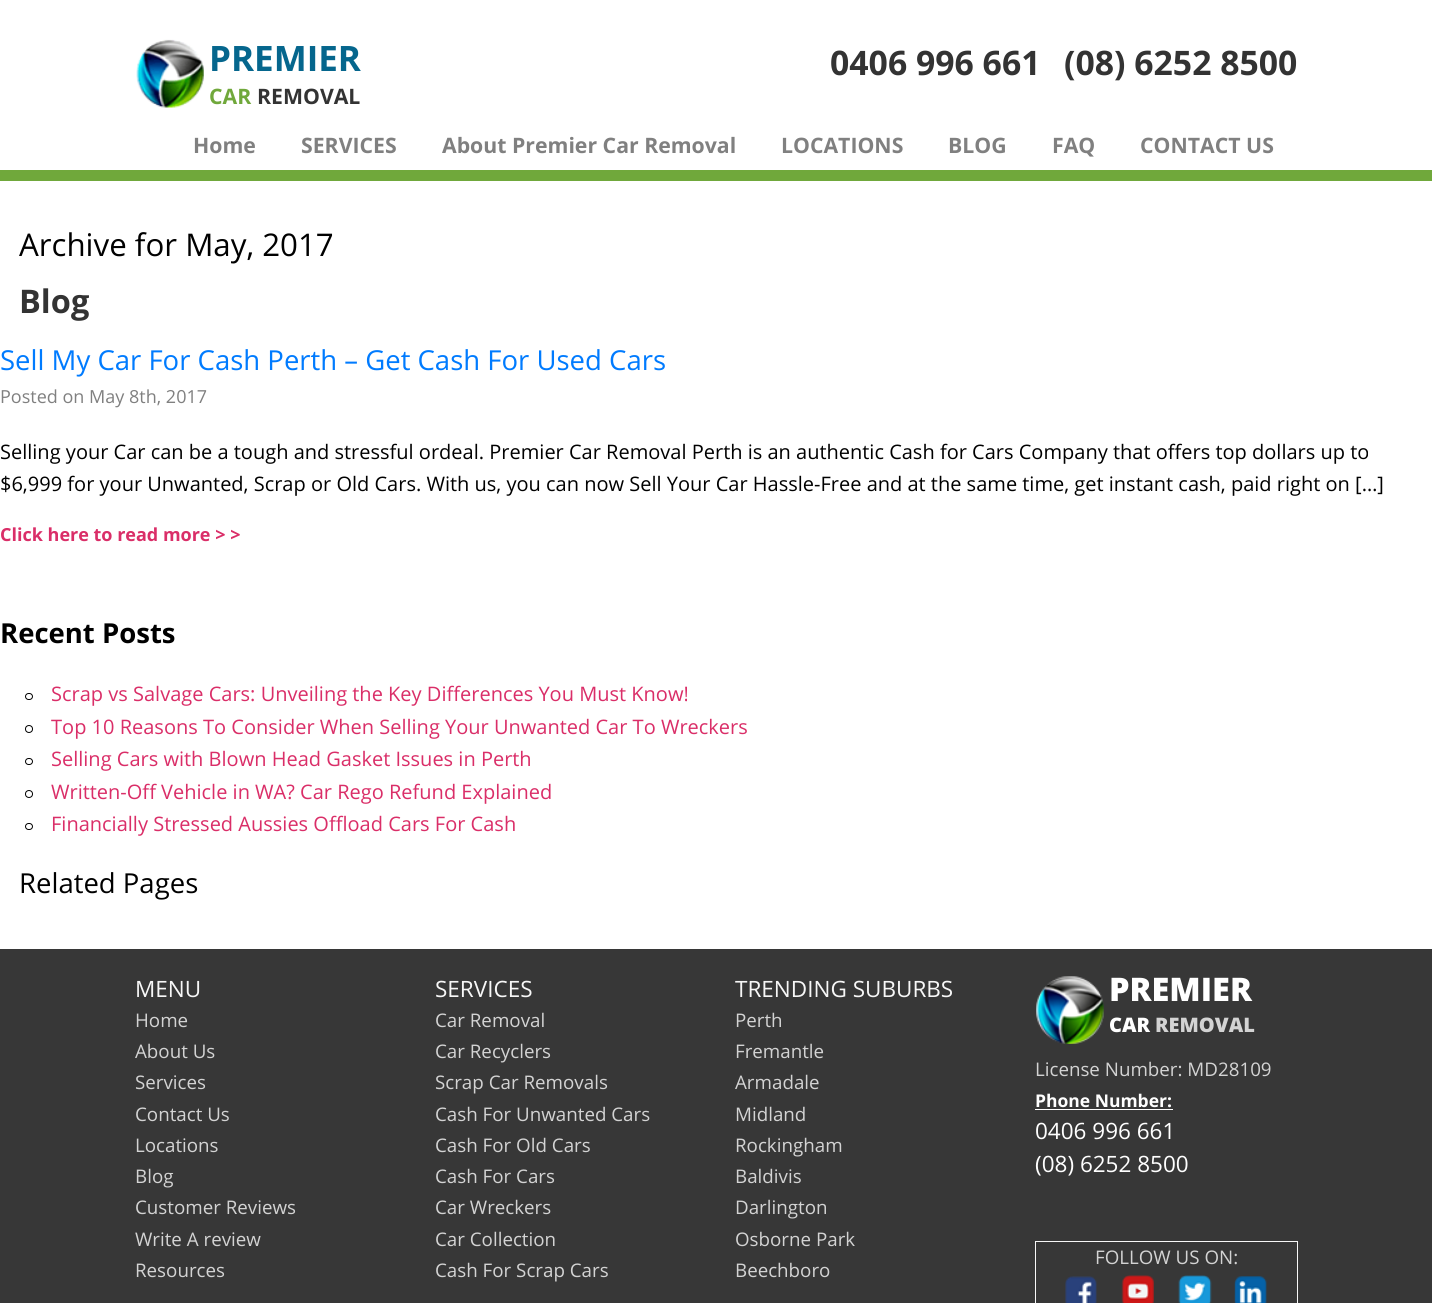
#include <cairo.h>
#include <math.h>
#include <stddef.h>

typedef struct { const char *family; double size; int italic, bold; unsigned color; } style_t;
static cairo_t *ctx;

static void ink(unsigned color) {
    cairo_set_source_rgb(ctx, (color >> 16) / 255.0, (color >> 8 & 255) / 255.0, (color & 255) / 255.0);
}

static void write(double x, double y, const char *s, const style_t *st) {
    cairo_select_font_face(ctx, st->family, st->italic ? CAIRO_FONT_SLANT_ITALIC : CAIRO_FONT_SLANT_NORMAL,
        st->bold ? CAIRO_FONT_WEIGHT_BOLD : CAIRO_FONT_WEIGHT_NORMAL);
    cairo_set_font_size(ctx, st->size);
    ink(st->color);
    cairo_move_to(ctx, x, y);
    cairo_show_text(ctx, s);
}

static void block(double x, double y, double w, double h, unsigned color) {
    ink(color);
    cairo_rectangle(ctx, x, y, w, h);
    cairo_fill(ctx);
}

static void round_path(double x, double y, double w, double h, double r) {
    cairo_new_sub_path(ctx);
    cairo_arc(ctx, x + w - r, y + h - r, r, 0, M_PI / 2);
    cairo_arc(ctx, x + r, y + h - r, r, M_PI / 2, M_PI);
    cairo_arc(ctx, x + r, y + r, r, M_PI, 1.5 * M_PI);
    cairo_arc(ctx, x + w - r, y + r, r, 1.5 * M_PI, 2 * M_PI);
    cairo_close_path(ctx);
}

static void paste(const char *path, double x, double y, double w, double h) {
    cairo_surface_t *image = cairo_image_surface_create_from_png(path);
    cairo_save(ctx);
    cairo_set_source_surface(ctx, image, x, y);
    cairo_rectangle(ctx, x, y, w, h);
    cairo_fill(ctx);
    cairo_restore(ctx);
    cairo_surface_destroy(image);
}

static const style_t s1 = {"Open Sans", 35, 0, 1, 0x05668d};
static const style_t s2 = {"Open Sans", 21.25, 0, 1, 0x70a83b};
static const style_t s3 = {"Open Sans", 21.25, 0, 1, 0x333333};
static const style_t s4 = {"Open Sans", 33.75, 0, 1, 0x333333};
static const style_t s5 = {"Open Sans", 21.25, 0, 1, 0x808080};
static const style_t s6 = {"Open Sans", 31.25, 0, 0, 0x000000};
static const style_t s7 = {"Open Sans", 32.5, 0, 1, 0x333333};
static const style_t s8 = {"Open Sans", 27.5, 0, 0, 0x007bff};
static const style_t s9 = {"Open Sans", 18, 0, 0, 0x808080};
static const style_t s10 = {"Open Sans", 20, 0, 0, 0x000000};
static const style_t s11 = {"Open Sans", 18, 0, 1, 0xda2e68};
static const style_t s12 = {"Open Sans", 27.5, 0, 1, 0x000000};
static const style_t s13 = {"Open Sans", 20, 0, 0, 0xda2e68};
static const style_t s14 = {"Open Sans", 27.5, 0, 0, 0x000000};
static const style_t s15 = {"Open Sans", 22.5, 0, 0, 0xf7f7f7};
static const style_t s16 = {"Open Sans", 18.75, 0, 0, 0xd3d3d3};
static const style_t s17 = {"Open Sans ExtraBold", 32.5, 0, 0, 0xffffff};
static const style_t s18 = {"Open Sans ExtraBold", 20, 0, 0, 0xffffff};
static const style_t s19 = {"Open Sans ExtraBold", 20, 0, 0, 0xd3d3d3};
static const style_t s20 = {"Open Sans", 17.5, 0, 1, 0xffffff};
static const style_t s21 = {"Open Sans", 22.5, 0, 0, 0xffffff};

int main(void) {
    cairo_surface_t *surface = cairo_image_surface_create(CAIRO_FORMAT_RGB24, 1432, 1303);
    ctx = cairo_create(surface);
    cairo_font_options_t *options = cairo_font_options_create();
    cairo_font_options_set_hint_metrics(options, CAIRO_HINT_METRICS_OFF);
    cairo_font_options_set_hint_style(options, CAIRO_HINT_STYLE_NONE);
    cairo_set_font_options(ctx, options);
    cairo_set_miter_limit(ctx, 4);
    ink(0xffffff);
    cairo_paint(ctx);
    paste("pic1.png", 136, 39, 68, 69);
    write(209, 71, "PREMIER", &s1);
    write(209, 104, "CAR", &s2);
    write(257, 104, "REMOVAL", &s3);
    write(830, 75, "0406 996 661", &s4);
    write(1064, 75, "(08) 6252 8500", &s4);
    block(0, 170, 1432, 11, 0x70a83b);
    write(193, 153, "Home", &s5);
    write(301, 153, "SERVICES", &s5);
    write(442, 153, "About Premier Car Removal", &s5);
    write(781, 153, "LOCATIONS", &s5);
    write(948, 153, "BLOG", &s5);
    write(1052, 153, "FAQ", &s5);
    write(1140, 153, "CONTACT US", &s5);
    write(19, 256, "Archive for May, 2017", &s6);
    write(19, 313, "Blog", &s7);
    write(0, 370, "Sell My Car For Cash Perth – Get Cash For Used Cars", &s8);
    write(0, 403, "Posted on May 8th, 2017", &s9);
    write(0, 459, "Selling your Car can be a tough and stressful ordeal. Premier Car Removal Perth is an authentic Cash for Cars Company that offers top dollars up to", &s10);
    write(0, 491, "$6,999 for your Unwanted, Scrap or Old Cars. With us, you can now Sell Your Car Hassle-Free and at the same time, get instant cash, paid right on […]", &s10);
    write(0, 541, "Click here to read more > >", &s11);
    write(0, 643, "Recent Posts", &s12);
    round_path(25.5, 693.5, 7, 6, 3);
    cairo_set_line_width(ctx, 1);
    cairo_stroke(ctx);
    write(51, 701, "Scrap vs Salvage Cars: Unveiling the Key Differences You Must Know!", &s13);
    cairo_new_path(ctx);
    cairo_arc(ctx, 29, 729, 3.5, 0, 2 * M_PI);
    ink(0x000000);
    cairo_stroke(ctx);
    write(51, 734, "Top 10 Reasons To Consider When Selling Your Unwanted Car To Wreckers", &s13);
    round_path(25.5, 758.5, 7, 6, 3);
    ink(0x000000);
    cairo_stroke(ctx);
    write(51, 766, "Selling Cars with Blown Head Gasket Issues in Perth", &s13);
    cairo_new_path(ctx);
    cairo_arc(ctx, 29, 794, 3.5, 0, 2 * M_PI);
    ink(0x000000);
    cairo_stroke(ctx);
    write(51, 799, "Written-Off Vehicle in WA? Car Rego Refund Explained", &s13);
    round_path(25.5, 823.5, 7, 6, 3);
    ink(0x000000);
    cairo_stroke(ctx);
    write(51, 831, "Financially Stressed Aussies Offload Cars For Cash", &s13);
    write(19, 893, "Related Pages", &s14);
    block(0, 949, 1432, 354, 0x373737);
    write(135, 997, "MENU", &s15);
    write(135, 1027, "Home", &s16);
    write(135, 1058, "About Us", &s16);
    write(135, 1089, "Services", &s16);
    write(135, 1121, "Contact Us", &s16);
    write(135, 1152, "Locations", &s16);
    write(135, 1183, "Blog", &s16);
    write(135, 1214, "Customer Reviews", &s16);
    write(135, 1246, "Write A review", &s16);
    write(135, 1277, "Resources", &s16);
    write(435, 997, "SERVICES", &s15);
    write(435, 1027, "Car Removal", &s16);
    write(435, 1058, "Car Recyclers", &s16);
    write(435, 1089, "Scrap Car Removals", &s16);
    write(435, 1121, "Cash For Unwanted Cars", &s16);
    write(435, 1152, "Cash For Old Cars", &s16);
    write(435, 1183, "Cash For Cars", &s16);
    write(435, 1214, "Car Wreckers", &s16);
    write(435, 1246, "Car Collection", &s16);
    write(435, 1277, "Cash For Scrap Cars", &s16);
    write(735, 997, "TRENDING SUBURBS", &s15);
    write(735, 1027, "Perth", &s16);
    write(735, 1058, "Fremantle", &s16);
    write(735, 1089, "Armadale", &s16);
    write(735, 1121, "Midland", &s16);
    write(735, 1152, "Rockingham", &s16);
    write(735, 1183, "Baldivis", &s16);
    write(735, 1214, "Darlington", &s16);
    write(735, 1246, "Osborne Park", &s16);
    write(735, 1277, "Beechboro", &s16);
    paste("pic2.png", 1036, 976, 68, 68);
    write(1109, 1001, "PREMIER", &s17);
    write(1109, 1032, "CAR", &s18);
    write(1155, 1032, "REMOVAL", &s19);
    write(1035, 1076, "License Number: MD28109", &s16);
    write(1035, 1107, "Phone Number:", &s20);
    block(1035, 1109, 138, 1, 0xffffff);
    write(1035, 1139, "0406 996 661", &s21);
    write(1035, 1172, "(08) 6252 8500", &s21);
    cairo_rectangle(ctx, 1035.5, 1241.5, 262, 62);
    ink(0xf7f7f7);
    cairo_stroke(ctx);
    write(1095, 1264, "FOLLOW US ON:", &s16);
    paste("pic3.png", 1065, 1276, 32, 27);
    paste("pic4.png", 1121, 1275, 33, 28);
    paste("pic5.png", 1178, 1275, 34, 28);
    paste("pic6.png", 1234, 1276, 33, 27);
    cairo_surface_write_to_png(surface, "screenshot.png");
    cairo_font_options_destroy(options);
    cairo_destroy(ctx);
    cairo_surface_destroy(surface);
    return 0;
}
